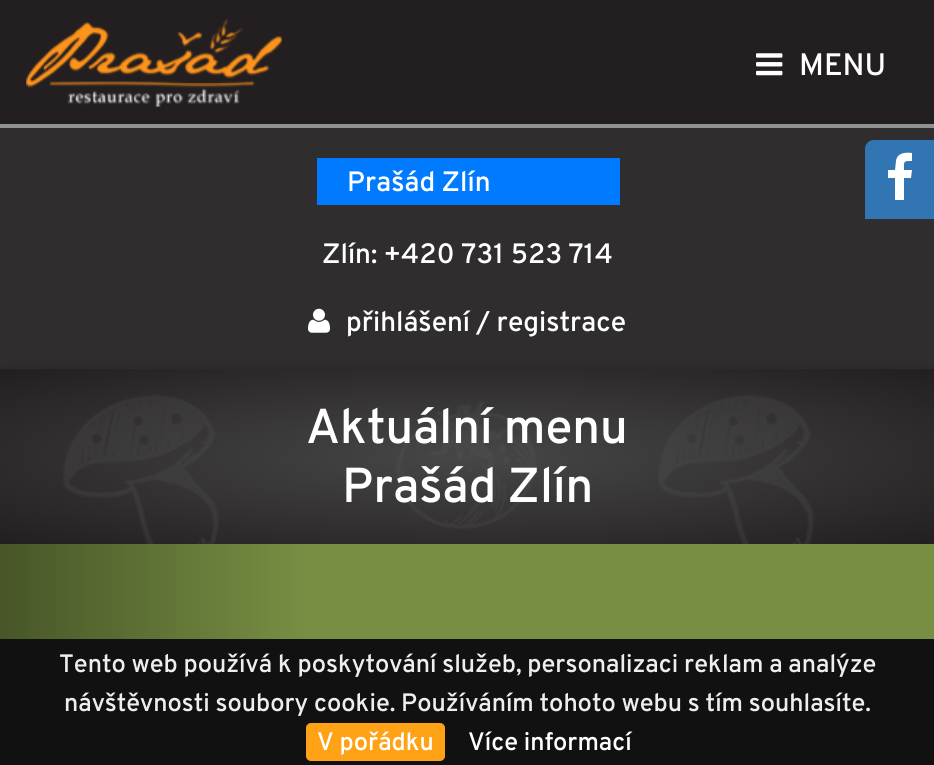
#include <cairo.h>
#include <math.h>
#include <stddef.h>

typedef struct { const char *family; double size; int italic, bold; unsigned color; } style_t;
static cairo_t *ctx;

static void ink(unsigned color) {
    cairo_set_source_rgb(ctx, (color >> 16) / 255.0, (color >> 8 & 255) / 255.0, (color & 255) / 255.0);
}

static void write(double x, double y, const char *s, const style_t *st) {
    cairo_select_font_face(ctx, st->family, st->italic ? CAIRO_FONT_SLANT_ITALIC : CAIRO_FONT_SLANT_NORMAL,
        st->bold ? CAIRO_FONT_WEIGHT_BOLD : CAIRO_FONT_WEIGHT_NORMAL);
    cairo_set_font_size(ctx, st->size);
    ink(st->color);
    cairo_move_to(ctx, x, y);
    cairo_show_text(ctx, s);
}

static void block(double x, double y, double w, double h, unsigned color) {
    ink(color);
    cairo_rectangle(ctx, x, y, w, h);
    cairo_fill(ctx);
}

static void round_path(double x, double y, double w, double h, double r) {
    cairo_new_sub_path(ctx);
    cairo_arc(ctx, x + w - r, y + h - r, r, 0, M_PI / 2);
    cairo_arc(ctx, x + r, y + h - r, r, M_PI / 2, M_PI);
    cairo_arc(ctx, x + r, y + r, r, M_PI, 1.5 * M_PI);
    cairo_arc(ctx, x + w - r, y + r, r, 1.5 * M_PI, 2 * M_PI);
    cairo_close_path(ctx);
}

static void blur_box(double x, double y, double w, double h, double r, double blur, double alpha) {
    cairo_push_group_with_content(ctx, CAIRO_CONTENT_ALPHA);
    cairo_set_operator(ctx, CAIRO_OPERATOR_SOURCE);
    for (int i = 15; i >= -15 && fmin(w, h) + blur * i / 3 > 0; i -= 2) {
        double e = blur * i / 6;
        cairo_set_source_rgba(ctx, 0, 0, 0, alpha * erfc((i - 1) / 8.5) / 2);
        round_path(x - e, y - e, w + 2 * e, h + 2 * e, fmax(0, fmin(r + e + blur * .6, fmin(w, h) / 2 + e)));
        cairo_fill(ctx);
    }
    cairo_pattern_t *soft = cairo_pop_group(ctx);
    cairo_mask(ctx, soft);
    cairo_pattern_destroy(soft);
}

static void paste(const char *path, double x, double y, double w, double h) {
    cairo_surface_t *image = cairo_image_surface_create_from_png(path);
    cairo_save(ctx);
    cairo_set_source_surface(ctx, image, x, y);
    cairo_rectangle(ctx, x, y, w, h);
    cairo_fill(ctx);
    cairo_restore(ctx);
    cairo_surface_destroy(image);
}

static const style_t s1 = {"Overpass", 31, 0, 0, 0xffffff};
static const style_t s2 = {"Overpass", 28, 0, 0, 0xffffff};
static const style_t s3 = {"Overpass", 49, 0, 0, 0xffffff};
static const style_t s4 = {"Overpass", 25.2, 0, 0, 0xeeeeee};
static const style_t s5 = {"Overpass", 25.2, 0, 0, 0xffffff};

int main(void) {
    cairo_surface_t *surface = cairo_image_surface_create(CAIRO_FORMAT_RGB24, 934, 765);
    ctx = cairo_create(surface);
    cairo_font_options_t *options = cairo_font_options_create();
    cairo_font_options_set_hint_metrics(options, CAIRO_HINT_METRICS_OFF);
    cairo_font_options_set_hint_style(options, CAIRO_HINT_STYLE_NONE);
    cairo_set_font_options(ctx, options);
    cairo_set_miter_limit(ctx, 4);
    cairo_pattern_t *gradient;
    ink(0x2f2d2d);
    cairo_paint(ctx);
    block(0, 0, 934, 124, 0x231f20);
    block(0, 124, 934, 4, 0x8f9295);
    paste("pic1.png", 26, 19, 256, 88);
    paste("pic2.png", 756, 53, 27, 23);
    write(799, 75, "MENU", &s1);
    block(317, 158, 303, 47, 0x007bff);
    write(347, 191, "Prašád Zlín", &s2);
    write(322, 263, "Zlín: +420 731 523 714", &s2);
    paste("pic3.png", 308, 308, 22, 25);
    write(346, 331, "přihlášení / registrace", &s2);
    ink(0x3176b2);
    cairo_new_path(ctx);
    cairo_move_to(ctx, 874, 140);
    cairo_line_to(ctx, 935, 140);
    cairo_line_to(ctx, 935, 219);
    cairo_line_to(ctx, 865, 219);
    cairo_line_to(ctx, 865, 149);
    cairo_curve_to(ctx, 865, 144, 869, 140, 874, 140);
    cairo_close_path(ctx);
    cairo_fill(ctx);
    ink(0xffffff);
    cairo_new_path(ctx);
    cairo_move_to(ctx, 912, 153);
    cairo_line_to(ctx, 912, 161);
    cairo_curve_to(ctx, 903, 161, 904, 161, 904, 170);
    cairo_line_to(ctx, 912, 170);
    cairo_line_to(ctx, 911, 178);
    cairo_line_to(ctx, 904, 178);
    cairo_line_to(ctx, 904, 200);
    cairo_line_to(ctx, 895, 200);
    cairo_line_to(ctx, 895, 178);
    cairo_line_to(ctx, 888, 178);
    cairo_line_to(ctx, 888, 170);
    cairo_line_to(ctx, 895, 170);
    cairo_line_to(ctx, 896, 161);
    cairo_curve_to(ctx, 897, 153, 905, 152, 912, 153);
    cairo_close_path(ctx);
    cairo_fill(ctx);
    ink(0x000000);
    blur_box(9, 378, 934, 175, 0, 9, 0.4);
    paste("pic4.png", 0, 369, 934, 175);
    write(306, 443, "Aktuální menu", &s3);
    write(342, 502, "Prašád Zlín", &s3);
    gradient = cairo_pattern_create_linear(0, 671, 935, 671);
    cairo_pattern_add_color_stop_rgba(gradient, 0, 0.282, 0.337, 0.157, 1);
    cairo_pattern_add_color_stop_rgba(gradient, 0.33, 0.467, 0.561, 0.263, 1);
    cairo_pattern_add_color_stop_rgba(gradient, 1, 0.467, 0.561, 0.263, 1);
    cairo_set_source(ctx, gradient);
    cairo_pattern_destroy(gradient);
    cairo_rectangle(ctx, 0, 544, 934, 95);
    cairo_fill(ctx);
    block(0, 639, 934, 126, 0x111111);
    write(59, 672, "Tento web používá k poskytování služeb, personalizaci reklam a analýze", &s4);
    write(64, 711, "návštěvnosti soubory cookie. Používáním tohoto webu s tím souhlasíte.", &s4);
    ink(0xffa215);
    round_path(306, 723, 139, 38, 5);
    cairo_fill(ctx);
    write(317, 750, "V pořádku", &s5);
    write(468, 750, "Více informací", &s5);
    cairo_surface_write_to_png(surface, "screenshot.png");
    cairo_font_options_destroy(options);
    cairo_destroy(ctx);
    cairo_surface_destroy(surface);
    return 0;
}
